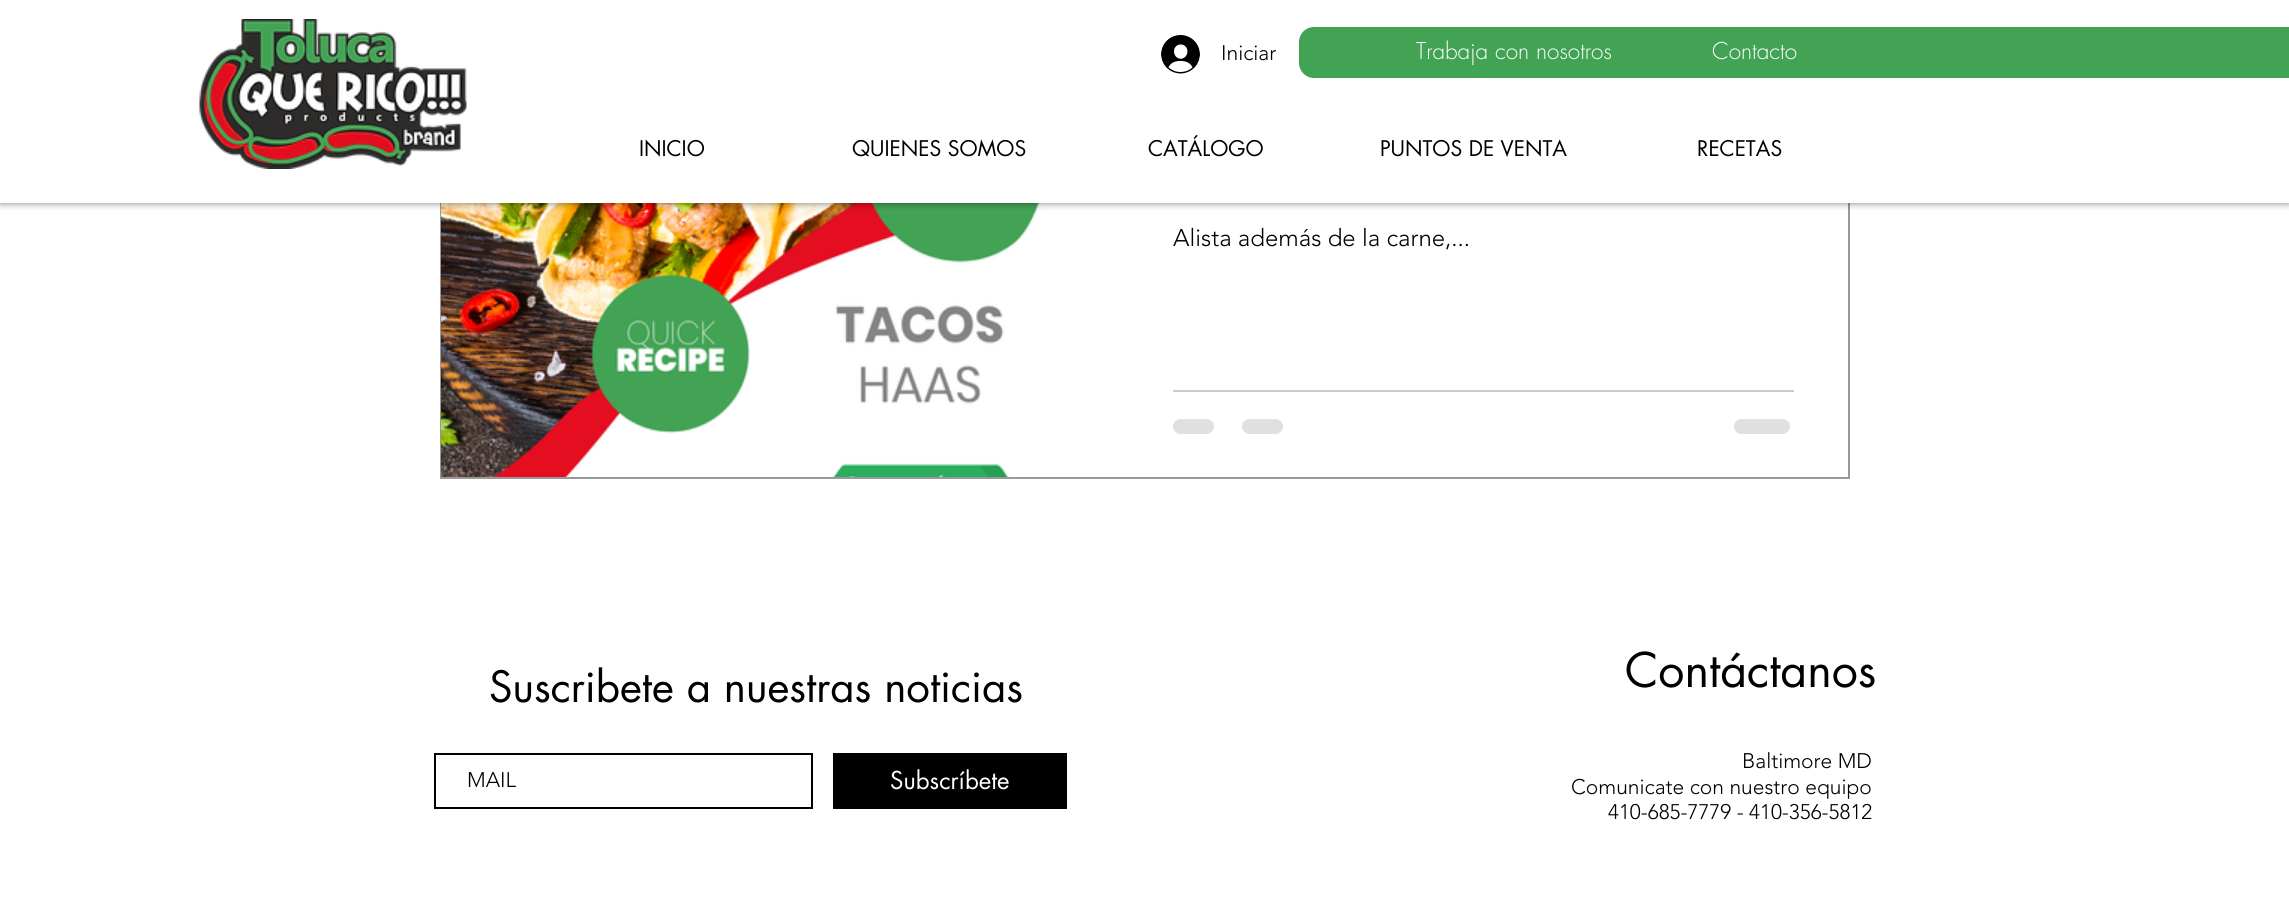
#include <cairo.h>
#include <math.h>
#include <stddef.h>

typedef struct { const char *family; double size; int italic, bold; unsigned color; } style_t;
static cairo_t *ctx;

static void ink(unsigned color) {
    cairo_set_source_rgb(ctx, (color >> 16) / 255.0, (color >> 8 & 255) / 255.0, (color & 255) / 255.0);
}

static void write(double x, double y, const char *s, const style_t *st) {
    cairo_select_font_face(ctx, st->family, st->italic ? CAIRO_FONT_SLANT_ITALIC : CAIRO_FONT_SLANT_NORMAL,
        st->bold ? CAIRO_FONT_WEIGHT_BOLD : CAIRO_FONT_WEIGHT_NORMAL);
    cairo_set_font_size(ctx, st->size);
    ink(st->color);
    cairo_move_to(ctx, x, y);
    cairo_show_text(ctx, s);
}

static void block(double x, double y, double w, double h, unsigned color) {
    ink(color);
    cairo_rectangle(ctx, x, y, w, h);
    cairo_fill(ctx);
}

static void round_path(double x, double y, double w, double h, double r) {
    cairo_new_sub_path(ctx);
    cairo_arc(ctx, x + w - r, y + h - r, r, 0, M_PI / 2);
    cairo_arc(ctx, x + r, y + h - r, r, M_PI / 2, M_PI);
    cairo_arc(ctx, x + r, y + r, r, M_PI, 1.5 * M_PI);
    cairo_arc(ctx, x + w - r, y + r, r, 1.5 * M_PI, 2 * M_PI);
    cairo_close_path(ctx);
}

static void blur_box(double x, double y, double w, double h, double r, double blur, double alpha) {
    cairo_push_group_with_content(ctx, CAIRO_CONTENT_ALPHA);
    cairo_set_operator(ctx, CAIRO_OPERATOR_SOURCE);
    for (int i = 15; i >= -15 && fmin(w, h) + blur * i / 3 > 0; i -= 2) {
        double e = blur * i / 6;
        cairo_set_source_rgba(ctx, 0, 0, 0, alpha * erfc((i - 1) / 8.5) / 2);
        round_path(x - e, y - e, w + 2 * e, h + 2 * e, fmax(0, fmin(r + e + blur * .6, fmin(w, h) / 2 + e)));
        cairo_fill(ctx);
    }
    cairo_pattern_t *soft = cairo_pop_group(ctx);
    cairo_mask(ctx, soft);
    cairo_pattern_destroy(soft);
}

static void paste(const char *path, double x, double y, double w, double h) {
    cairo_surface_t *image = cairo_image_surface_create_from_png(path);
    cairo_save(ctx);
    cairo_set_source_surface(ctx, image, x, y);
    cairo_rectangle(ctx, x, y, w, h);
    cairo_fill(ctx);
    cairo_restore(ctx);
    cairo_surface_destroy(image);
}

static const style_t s1 = {"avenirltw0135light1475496 Light", 21, 0, 0, 0x000000};
static const style_t s2 = {"futura Light", 22.5, 0, 0, 0xffffff};
static const style_t s3 = {"futura", 21, 0, 0, 0x000000};
static const style_t s4 = {"avenirltw0135light1475496 Light", 24, 0, 0, 0x000000};
static const style_t s5 = {"futura", 42, 0, 0, 0x000000};
static const style_t s6 = {"futura", 24, 0, 0, 0xffffff};
static const style_t s7 = {"futura", 46.5, 0, 0, 0x000000};

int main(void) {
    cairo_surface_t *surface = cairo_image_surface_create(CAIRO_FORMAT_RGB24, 2289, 904);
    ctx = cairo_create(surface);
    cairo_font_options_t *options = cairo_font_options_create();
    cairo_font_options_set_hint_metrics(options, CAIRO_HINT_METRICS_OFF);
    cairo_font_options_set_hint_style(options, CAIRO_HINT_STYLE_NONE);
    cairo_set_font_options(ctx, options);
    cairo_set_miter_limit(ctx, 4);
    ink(0xffffff);
    cairo_paint(ctx);
    cairo_rectangle(ctx, 441, -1, 1408, 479);
    ink(0x999999);
    cairo_stroke(ctx);
    paste("pic3.png", 441, 203, 678, 274);
    ink(0x000000);
    blur_box(0, 0, 2289, 203, 0, 4, 0.5);
    block(0, 0, 2289, 203, 0xffffff);
    paste("pic1.png", 199, 19, 268, 150);
    paste("pic2.png", 1161, 35, 39, 39);
    write(1221, 60, "Iniciar", &s1);
    ink(0x43a355);
    round_path(1299, 27, 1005, 51, 15);
    cairo_fill(ctx);
    write(1416, 59, "Trabaja con nosotros", &s2);
    write(1712, 59, "Contacto", &s2);
    write(639, 156, "INICIO", &s3);
    write(852, 156, "QUIENES SOMOS", &s3);
    write(1148, 156, "CATÁLOGO", &s3);
    write(1380, 156, "PUNTOS DE VENTA", &s3);
    write(1697, 156, "RECETAS", &s3);
    write(1173, 246, "Alista además de la carne,...", &s4);
    block(1173, 390, 621, 2, 0xcccccc);
    ink(0xe0e0e0);
    round_path(1173, 419, 41, 15, 7.5);
    cairo_fill(ctx);
    round_path(1242, 419, 41, 15, 7.5);
    cairo_fill(ctx);
    round_path(1734, 419, 56, 15, 7.5);
    cairo_fill(ctx);
    write(489, 702, "Suscribete a nuestras noticias", &s5);
    cairo_rectangle(ctx, 435, 754, 377, 54);
    cairo_stroke(ctx);
    write(467, 787, "MAIL", &s1);
    block(833, 753, 234, 56, 0x000000);
    write(890, 789, "Subscríbete", &s6);
    write(1625, 687, "Contáctanos", &s7);
    write(1742, 768, "Baltimore MD", &s1);
    write(1571, 794, "Comunicate con nuestro equipo", &s1);
    write(1608, 819, "410-685-7779 - 410-356-5812", &s1);
    cairo_surface_write_to_png(surface, "screenshot.png");
    cairo_font_options_destroy(options);
    cairo_destroy(ctx);
    cairo_surface_destroy(surface);
    return 0;
}
